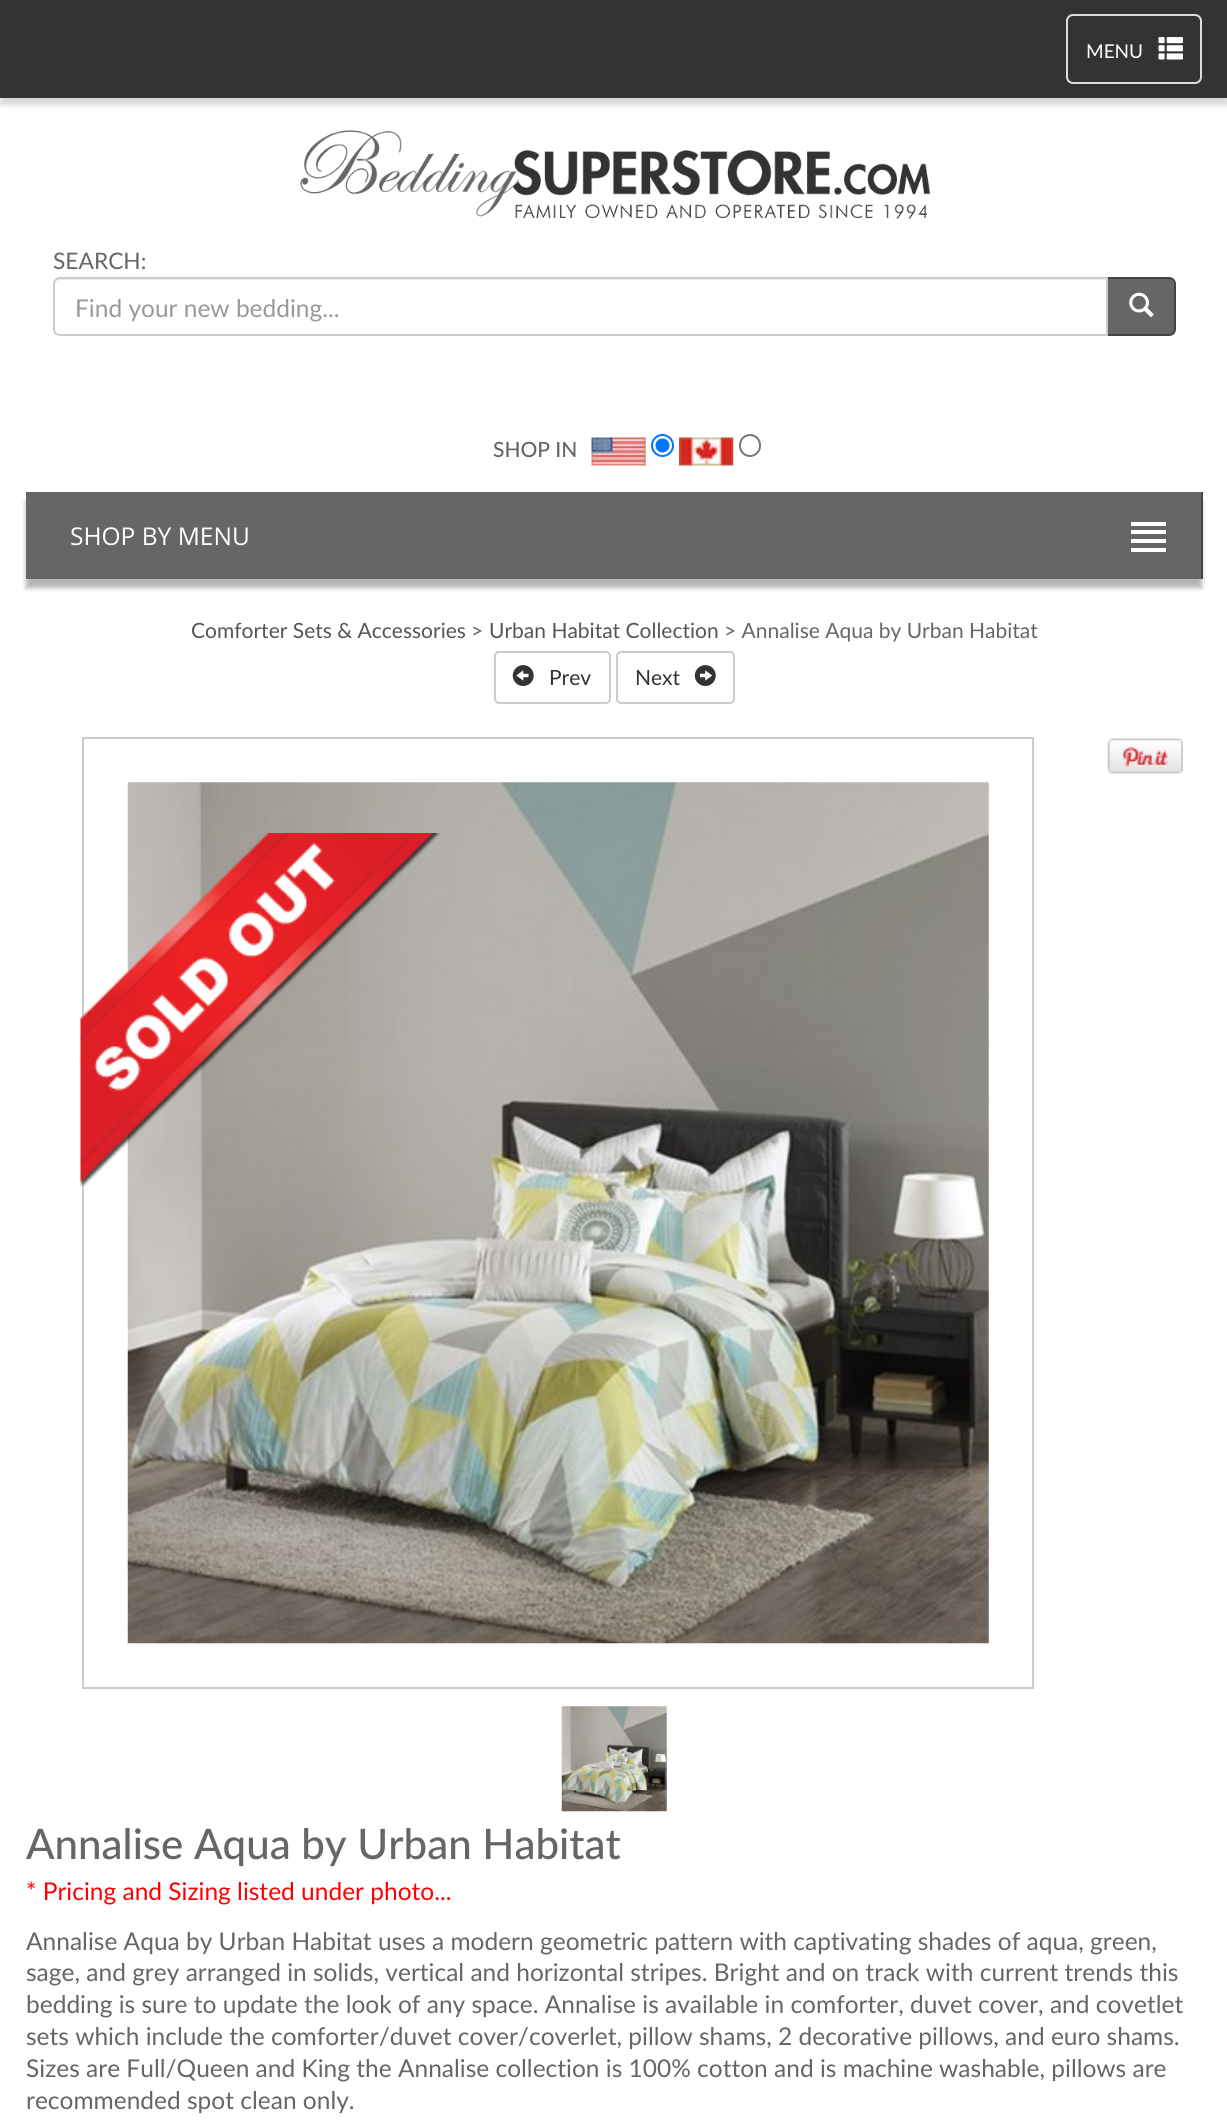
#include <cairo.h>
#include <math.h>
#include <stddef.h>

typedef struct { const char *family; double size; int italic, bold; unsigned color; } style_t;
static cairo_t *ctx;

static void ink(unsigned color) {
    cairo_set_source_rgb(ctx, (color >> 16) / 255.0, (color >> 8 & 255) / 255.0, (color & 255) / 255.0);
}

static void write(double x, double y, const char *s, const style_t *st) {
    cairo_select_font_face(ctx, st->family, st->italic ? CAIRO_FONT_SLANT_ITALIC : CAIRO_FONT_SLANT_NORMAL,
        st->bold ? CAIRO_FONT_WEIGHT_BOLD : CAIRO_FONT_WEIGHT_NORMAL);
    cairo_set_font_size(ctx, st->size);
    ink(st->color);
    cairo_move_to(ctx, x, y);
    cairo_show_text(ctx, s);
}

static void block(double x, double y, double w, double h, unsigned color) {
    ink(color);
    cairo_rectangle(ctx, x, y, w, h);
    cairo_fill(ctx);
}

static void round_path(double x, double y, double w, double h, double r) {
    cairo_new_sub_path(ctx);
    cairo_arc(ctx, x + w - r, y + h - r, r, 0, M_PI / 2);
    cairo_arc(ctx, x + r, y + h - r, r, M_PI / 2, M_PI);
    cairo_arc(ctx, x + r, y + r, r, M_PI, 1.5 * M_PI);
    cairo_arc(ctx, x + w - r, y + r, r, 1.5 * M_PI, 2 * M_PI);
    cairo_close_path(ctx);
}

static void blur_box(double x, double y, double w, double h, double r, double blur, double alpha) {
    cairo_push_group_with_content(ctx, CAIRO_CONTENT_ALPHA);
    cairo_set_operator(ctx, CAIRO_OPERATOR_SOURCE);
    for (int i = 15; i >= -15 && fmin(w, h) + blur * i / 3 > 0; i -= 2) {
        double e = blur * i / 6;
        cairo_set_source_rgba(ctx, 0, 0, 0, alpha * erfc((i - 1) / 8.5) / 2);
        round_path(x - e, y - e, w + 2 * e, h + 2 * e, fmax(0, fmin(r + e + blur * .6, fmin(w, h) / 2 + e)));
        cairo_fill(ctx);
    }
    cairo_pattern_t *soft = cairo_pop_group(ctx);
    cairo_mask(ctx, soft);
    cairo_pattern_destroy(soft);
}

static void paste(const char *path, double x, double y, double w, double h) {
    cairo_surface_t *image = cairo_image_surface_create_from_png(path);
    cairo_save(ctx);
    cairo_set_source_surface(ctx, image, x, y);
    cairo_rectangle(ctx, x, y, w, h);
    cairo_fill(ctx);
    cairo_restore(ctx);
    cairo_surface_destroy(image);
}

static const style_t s1 = {"Lato", 19, 0, 0, 0xffffff};
static const style_t s2 = {"Lato", 22.75, 0, 0, 0x666666};
static const style_t s3 = {"Lato", 24.5, 0, 0, 0x999999};
static const style_t s4 = {"Lato Medium", 21, 0, 0, 0x666666};
static const style_t s5 = {"Open Sans", 24.5, 0, 0, 0xffffff};
static const style_t s6 = {"Lato", 21, 0, 0, 0x555555};
static const style_t s7 = {"Lato", 21, 0, 0, 0x666666};
static const style_t s8 = {"Lato", 21, 0, 0, 0x333333};
static const style_t s9 = {"Lato Medium", 42, 0, 0, 0x666666};
static const style_t s10 = {"Lato", 24.5, 0, 0, 0xff0000};
static const style_t s11 = {"Lato", 24.5, 0, 0, 0x666666};

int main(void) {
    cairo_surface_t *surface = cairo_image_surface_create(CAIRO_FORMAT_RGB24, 1227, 2124);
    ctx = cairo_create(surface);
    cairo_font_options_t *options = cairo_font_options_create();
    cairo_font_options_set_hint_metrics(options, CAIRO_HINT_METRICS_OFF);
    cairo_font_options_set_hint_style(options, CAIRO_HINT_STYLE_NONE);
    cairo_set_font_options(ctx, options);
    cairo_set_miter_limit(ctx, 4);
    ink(0xffffff);
    cairo_paint(ctx);
    ink(0x000000);
    blur_box(0, 7, 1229, 98, 0, 2.5, 0.15);
    block(0, 0, 1227, 98, 0x333333);
    round_path(1067, 15, 134, 68, 6);
    ink(0xdddddd);
    cairo_stroke(ctx);
    write(1086, 58, "MENU", &s1);
    paste("pic1.png", 1158, 37, 25, 23);
    paste("pic2.png", 300, 130, 631, 89);
    write(53, 269, "SEARCH:", &s2);
    cairo_new_path(ctx);
    cairo_move_to(ctx, 1107, 278);
    cairo_line_to(ctx, 1169, 278);
    cairo_curve_to(ctx, 1172.5, 278, 1175, 280.5, 1175, 284);
    cairo_line_to(ctx, 1175, 329);
    cairo_curve_to(ctx, 1175, 332.5, 1172.5, 335, 1169, 335);
    cairo_line_to(ctx, 1107, 335);
    cairo_close_path(ctx);
    cairo_fill_preserve(ctx);
    ink(0x444444);
    cairo_stroke(ctx);
    ink(0xffffff);
    cairo_new_path(ctx);
    cairo_move_to(ctx, 60, 277);
    cairo_line_to(ctx, 1108, 277);
    cairo_line_to(ctx, 1108, 336);
    cairo_line_to(ctx, 60, 336);
    cairo_curve_to(ctx, 56, 336, 53, 333, 53, 329);
    cairo_line_to(ctx, 53, 284);
    cairo_curve_to(ctx, 53, 280, 56, 277, 60, 277);
    cairo_close_path(ctx);
    cairo_fill(ctx);
    ink(0xececec);
    cairo_new_path(ctx);
    cairo_move_to(ctx, 60, 280);
    cairo_line_to(ctx, 1106, 280);
    cairo_line_to(ctx, 1106, 278);
    cairo_line_to(ctx, 59, 278);
    cairo_curve_to(ctx, 56, 278, 54, 280, 54, 283);
    cairo_line_to(ctx, 54, 285);
    cairo_curve_to(ctx, 54, 282, 57, 280, 60, 280);
    cairo_close_path(ctx);
    cairo_fill(ctx);
    cairo_new_path(ctx);
    cairo_move_to(ctx, 60, 278);
    cairo_line_to(ctx, 1107, 278);
    cairo_line_to(ctx, 1107, 335);
    cairo_line_to(ctx, 60, 335);
    cairo_curve_to(ctx, 56.5, 335, 54, 332.5, 54, 329);
    cairo_line_to(ctx, 54, 284);
    cairo_curve_to(ctx, 54, 280.5, 56.5, 278, 60, 278);
    cairo_close_path(ctx);
    ink(0xcccccc);
    cairo_stroke(ctx);
    write(75, 317, "Find your new bedding...", &s3);
    paste("pic3.png", 1129, 292, 25, 26);
    write(493, 457, "SHOP IN", &s4);
    paste("pic4.png", 591, 437, 55, 29);
    cairo_arc(ctx, 662.5, 445.5, 10.5, 0, 2 * M_PI);
    ink(0x0075ff);
    cairo_stroke(ctx);
    cairo_arc(ctx, 662.5, 445.5, 7, 0, 2 * M_PI);
    cairo_fill(ctx);
    paste("pic5.png", 679, 437, 55, 29);
    round_path(740, 435, 20, 21, 10);
    ink(0x767676);
    cairo_stroke(ctx);
    ink(0x000000);
    blur_box(26, 501, 1176, 87, 0, 2.5, 0.3);
    block(26, 492, 1175, 87, 0x666666);
    block(1201, 492, 2, 87, 0x444444);
    write(70, 545, "SHOP BY MENU", &s5);
    block(1131, 522, 35, 4, 0xffffff);
    block(1131, 530, 35, 4, 0xffffff);
    block(1131, 539, 35, 4, 0xffffff);
    block(1131, 548, 35, 4, 0xffffff);
    write(191, 638, "Comforter Sets & Accessories", &s6);
    write(471, 638, ">", &s7);
    write(489, 638, "Urban Habitat Collection", &s6);
    write(724, 638, "> Annalise Aqua by Urban Habitat", &s7);
    round_path(495, 652, 115, 51, 4);
    ink(0xcccccc);
    cairo_stroke(ctx);
    paste("pic6.png", 512, 665, 22, 21);
    write(549, 685, "Prev", &s8);
    round_path(617, 652, 117, 51, 4);
    ink(0xcccccc);
    cairo_stroke(ctx);
    write(635, 685, "Next", &s8);
    paste("pic7.png", 694, 665, 22, 21);
    cairo_rectangle(ctx, 83, 738, 950, 950);
    ink(0xcccccc);
    cairo_stroke(ctx);
    paste("pic8.png", 127, 782, 862, 862);
    paste("pic9.png", 80, 833, 361, 354);
    paste("pic10.png", 1107, 738, 76, 36);
    paste("pic11.png", 561, 1706, 106, 106);
    write(26, 1859, "Annalise Aqua by Urban Habitat", &s9);
    write(26, 1900, "* Pricing and Sizing listed under photo...", &s10);
    write(26, 1950, "Annalise Aqua by Urban Habitat uses a modern geometric pattern with captivating shades of aqua, green,", &s11);
    write(26, 1981, "sage, and grey arranged in solids, vertical and horizontal stripes. Bright and on track with current trends this", &s11);
    write(26, 2013, "bedding is sure to update the look of any space. Annalise is available in comforter, duvet cover, and covetlet", &s11);
    write(26, 2045, "sets which include the comforter/duvet cover/coverlet, pillow shams, 2 decorative pillows, and euro shams.", &s11);
    write(26, 2077, "Sizes are Full/Queen and King the Annalise collection is 100% cotton and is machine washable, pillows are", &s11);
    write(26, 2109, "recommended spot clean only.", &s11);
    cairo_surface_write_to_png(surface, "screenshot.png");
    cairo_font_options_destroy(options);
    cairo_destroy(ctx);
    cairo_surface_destroy(surface);
    return 0;
}
